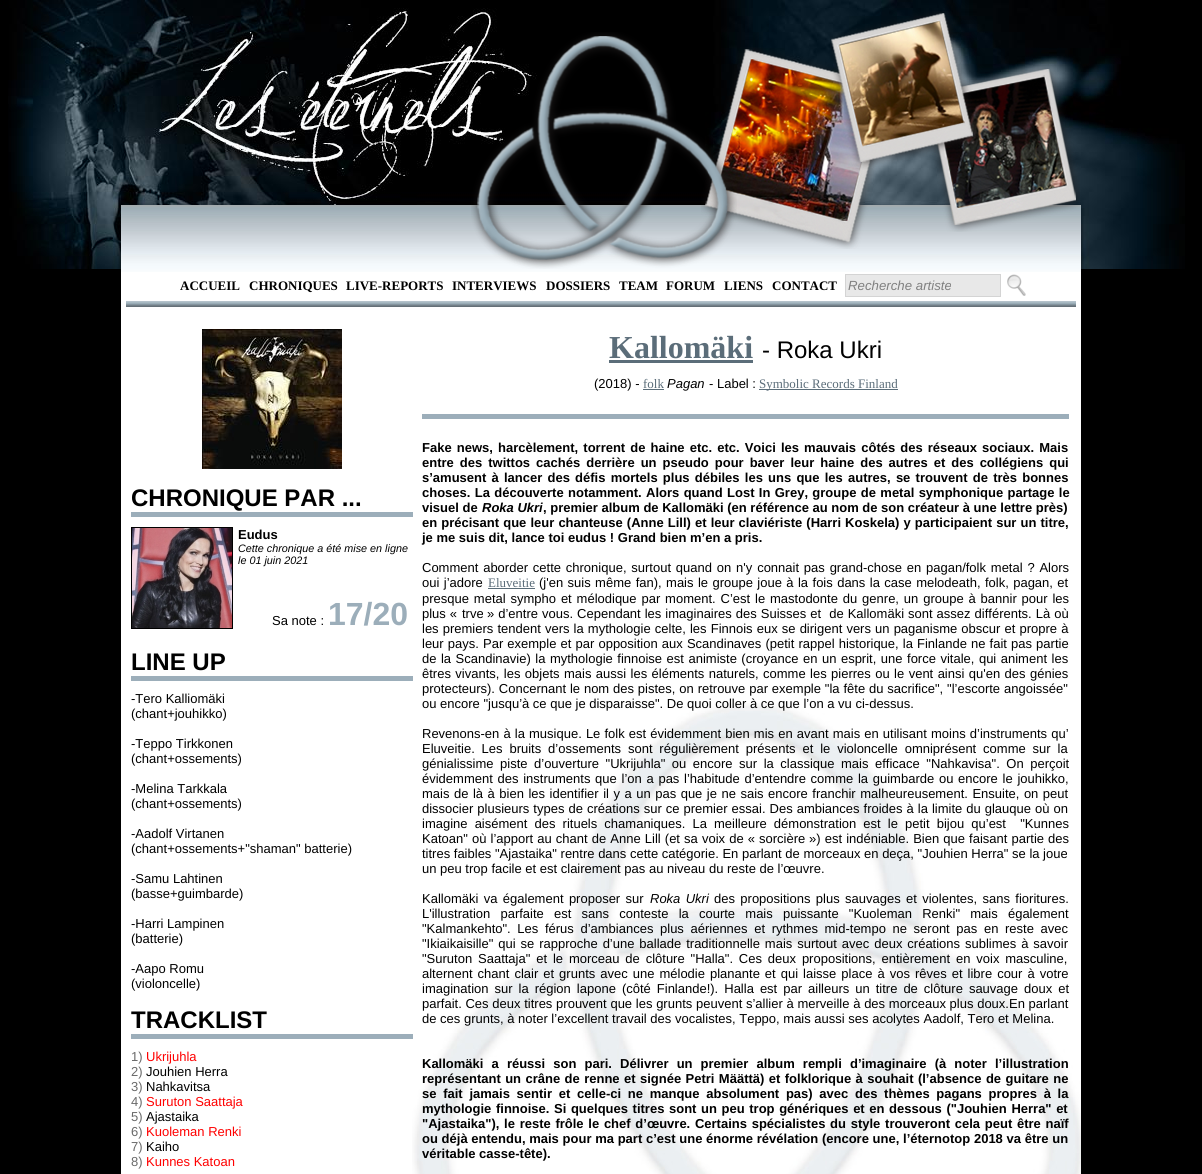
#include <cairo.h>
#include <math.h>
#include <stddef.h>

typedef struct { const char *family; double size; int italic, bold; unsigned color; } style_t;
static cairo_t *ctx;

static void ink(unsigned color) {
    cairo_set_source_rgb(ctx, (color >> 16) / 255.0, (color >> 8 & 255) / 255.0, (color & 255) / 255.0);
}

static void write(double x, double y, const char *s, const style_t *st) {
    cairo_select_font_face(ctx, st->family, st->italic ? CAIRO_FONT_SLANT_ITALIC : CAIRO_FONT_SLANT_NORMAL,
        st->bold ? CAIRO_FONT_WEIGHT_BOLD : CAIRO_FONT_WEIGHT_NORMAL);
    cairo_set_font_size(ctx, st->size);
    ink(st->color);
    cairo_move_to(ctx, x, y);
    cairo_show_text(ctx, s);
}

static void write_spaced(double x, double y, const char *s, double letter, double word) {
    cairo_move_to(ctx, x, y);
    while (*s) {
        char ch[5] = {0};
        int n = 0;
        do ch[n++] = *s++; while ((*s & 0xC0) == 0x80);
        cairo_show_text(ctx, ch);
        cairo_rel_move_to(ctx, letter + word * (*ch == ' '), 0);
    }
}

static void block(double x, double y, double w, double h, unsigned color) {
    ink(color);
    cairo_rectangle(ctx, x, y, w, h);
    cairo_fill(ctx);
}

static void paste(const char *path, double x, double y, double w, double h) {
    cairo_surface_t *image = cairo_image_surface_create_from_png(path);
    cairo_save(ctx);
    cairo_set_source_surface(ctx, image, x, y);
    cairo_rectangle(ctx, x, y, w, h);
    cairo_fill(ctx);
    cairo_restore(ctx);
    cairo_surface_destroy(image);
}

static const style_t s1 = {"Liberation Serif", 13, 0, 1, 0x000000};
static const style_t s2 = {"Liberation Sans", 13.25, 1, 0, 0x808080};
static const style_t s3 = {"Liberation Sans", 24, 0, 1, 0x000000};
static const style_t s4 = {"Liberation Sans", 13, 0, 1, 0x000000};
static const style_t s5 = {"Liberation Sans", 10.8, 1, 0, 0x000000};
static const style_t s6 = {"Liberation Sans", 13, 0, 0, 0x000000};
static const style_t s7 = {"Liberation Sans", 32, 0, 1, 0x9caeba};
static const style_t s8 = {"Liberation Sans", 13, 0, 0, 0x696969};
static const style_t s9 = {"Liberation Sans", 13, 0, 0, 0xff0000};
static const style_t s10 = {"Liberation Serif", 32, 0, 1, 0x5b6d79};
static const style_t s11 = {"Liberation Sans", 24, 0, 0, 0x000000};
static const style_t s12 = {"Liberation Serif", 13, 0, 0, 0x5b6d79};
static const style_t s13 = {"Liberation Sans", 13, 1, 0, 0x000000};
static const style_t s14 = {"Liberation Sans", 13, 1, 1, 0x000000};

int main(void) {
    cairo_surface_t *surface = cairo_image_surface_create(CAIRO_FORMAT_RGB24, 1202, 1174);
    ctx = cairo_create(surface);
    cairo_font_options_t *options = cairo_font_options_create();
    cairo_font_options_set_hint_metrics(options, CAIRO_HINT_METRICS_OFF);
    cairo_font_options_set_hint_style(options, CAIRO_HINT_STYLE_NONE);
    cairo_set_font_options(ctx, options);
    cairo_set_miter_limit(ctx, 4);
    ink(0x000000);
    cairo_paint(ctx);
    paste("pic1.png", 8, 0, 1177, 269);
    paste("pic6.png", 121, 205, 960, 67);
    paste("pic3.png", 701, 47, 179, 202);
    paste("pic2.png", 471, 32, 266, 237);
    paste("pic5.png", 931, 65, 149, 167);
    paste("pic4.png", 830, 11, 150, 159);
    block(121, 272, 960, 902, 0xffffff);
    write(180, 290, "ACCUEIL", &s1);
    write(249, 290, "CHRONIQUES", &s1);
    write(346, 290, "LIVE-REPORTS", &s1);
    write(452, 290, "INTERVIEWS", &s1);
    write(546, 290, "DOSSIERS", &s1);
    write(619, 290, "TEAM", &s1);
    write(666, 290, "FORUM", &s1);
    write(724, 290, "LIENS", &s1);
    write(772, 290, "CONTACT", &s1);
    ink(0xe8e8e8);
    cairo_rectangle(ctx, 845.5, 274.5, 155, 22);
    cairo_fill_preserve(ctx);
    ink(0xd4d4d4);
    cairo_set_line_width(ctx, 1);
    cairo_stroke(ctx);
    write(848, 290, "Recherche artiste", &s2);
    paste("pic7.png", 1007, 274, 19, 22);
    paste("pic8.png", 126, 301, 950, 6);
    paste("pic9.png", 412, 703, 669, 471);
    paste("pic10.png", 202, 329, 140, 140);
    block(131, 512, 282, 5, 0x9caeba);
    write(131, 506, "CHRONIQUE PAR ...", &s3);
    cairo_rectangle(ctx, 131.5, 527.5, 101, 101);
    cairo_stroke(ctx);
    paste("pic11.png", 132, 528, 100, 100);
    write(238, 539, "Eudus", &s4);
    write(238, 552, "Cette chronique a été mise en ligne", &s5);
    write(238, 564, "le 01 juin 2021", &s5);
    write(272, 625, "Sa note :", &s6);
    write(328, 625, "17/20", &s7);
    block(131, 676, 282, 5, 0x9caeba);
    write(131, 670, "LINE UP", &s3);
    write(131, 703, "-Tero Kalliomäki", &s6);
    write(131, 718, "(chant+jouhikko)", &s6);
    write(131, 748, "-Teppo Tirkkonen", &s6);
    write(131, 763, "(chant+ossements)", &s6);
    write(131, 793, "-Melina Tarkkala", &s6);
    write(131, 808, "(chant+ossements)", &s6);
    write(131, 838, "-Aadolf Virtanen", &s6);
    write(131, 853, "(chant+ossements+\"shaman\" batterie)", &s6);
    write(131, 883, "-Samu Lahtinen", &s6);
    write(131, 898, "(basse+guimbarde)", &s6);
    write(131, 928, "-Harri Lampinen", &s6);
    write(131, 943, "(batterie)", &s6);
    write(131, 973, "-Aapo Romu", &s6);
    write(131, 988, "(violoncelle)", &s6);
    block(131, 1034, 282, 5, 0x9caeba);
    write(131, 1028, "TRACKLIST", &s3);
    write(131, 1061, "1)", &s8);
    write(146, 1061, "Ukrijuhla", &s9);
    write(131, 1076, "2)", &s8);
    write(146, 1076, "Jouhien Herra", &s6);
    write(131, 1091, "3)", &s8);
    write(146, 1091, "Nahkavitsa", &s6);
    write(131, 1106, "4)", &s8);
    write(146, 1106, "Suruton Saattaja", &s9);
    write(131, 1121, "5)", &s8);
    write(146, 1121, "Ajastaika", &s6);
    write(131, 1136, "6)", &s8);
    write(146, 1136, "Kuoleman Renki", &s9);
    write(131, 1151, "7)", &s8);
    write(146, 1151, "Kaiho", &s6);
    write(131, 1166, "8)", &s8);
    write(146, 1166, "Kunnes Katoan", &s9);
    write(609, 358, "Kallomäki", &s10);
    block(609, 360, 144, 3, 0x5b6d79);
    write(762, 358, "- Roka Ukri", &s11);
    write(594, 388, "(2018) -", &s6);
    write(643, 388, "folk", &s12);
    block(643, 389, 21, 1, 0x5b6d79);
    write(667, 388, "Pagan", &s13);
    write(709, 388, "- Label :", &s6);
    block(759, 389, 139, 1, 0x5b6d79);
    write(759, 388, "Symbolic Records Finland", &s12);
    block(422, 414, 647, 5, 0x9caeba);
    cairo_select_font_face(ctx, "Liberation Sans", CAIRO_FONT_SLANT_NORMAL, CAIRO_FONT_WEIGHT_BOLD);
    ink(0x000000);
    write_spaced(422, 452, "Fake news, harcèlement, torrent de haine etc. etc. Voici les mauvais côtés des réseaux sociaux. Mais", 0, 1.5);
    write_spaced(422, 467, "entre des twittos cachés derrière un pseudo pour baver leur haine des autres et des collégiens qui", 0, 2.4);
    write_spaced(422, 482, "s’amusent à lancer des défis mortels plus débiles les uns que les autres, se trouvent de très bonnes", 0, 1.6);
    write_spaced(422, 497, "choses. La découverte notamment. Alors quand Lost In Grey, groupe de metal symphonique partage le", 0, 0.75);
    write(422, 512, "visuel de", &s4);
    write(482, 512, "Roka Ukri", &s14);
    write(543, 512, ", premier album de Kallomäki (en référence au nom de son créateur à une lettre près)", &s4);
    write_spaced(422, 527, "en précisant que leur chanteuse (Anne Lill) et leur claviériste (Harri Koskela) y participaient sur un titre,", 0, 0.5);
    write(422, 542, "je me suis dit, lance toi eudus ! Grand bien m’en a pris.", &s4);
    cairo_select_font_face(ctx, "Liberation Sans", CAIRO_FONT_SLANT_NORMAL, CAIRO_FONT_WEIGHT_NORMAL);
    write_spaced(422, 572, "Comment aborder cette chronique, surtout quand on n'y connait pas grand-chose en pagan/folk metal ? Alors", 0, 1.2);
    write_spaced(422, 587, "oui j’adore", 0, 0.8);
    write(488, 587, "Eluveitie", &s12);
    block(488, 588, 47, 1, 0x5b6d79);
    cairo_select_font_face(ctx, "Liberation Sans", CAIRO_FONT_SLANT_NORMAL, CAIRO_FONT_WEIGHT_NORMAL);
    ink(0x000000);
    write_spaced(539, 587, "(j'en suis même fan), mais le groupe joue à la fois dans la case melodeath, folk, pagan, et", 0, 0.8);
    write_spaced(422, 603, "presque metal sympho et mélodique par moment. C’est le mastodonte du genre, un groupe à bannir pour les", 0, 1.25);
    write_spaced(422, 618, "plus «", 0, 0.4);
    write(462, 618, "trve", &s6);
    write_spaced(487, 618, "» d’entre vous. Cependant les imaginaires des Suisses et  de Kallomäki sont assez différents. Là où", 0, 0.4);
    write_spaced(422, 633, "les premiers tendent vers la mythologie celte, les Finnois eux se dirigent vers un paganisme obscur et propre à", 0, 0.5);
    write_spaced(422, 648, "leur pays. Par exemple et par opposition aux Scandinaves (petit rappel historique, la Finlande ne fait pas partie", 0, 0.5);
    write_spaced(422, 663, "de la Scandinavie) la mythologie finnoise est animiste (croyance en un esprit, une force vitale, qui animent les", 0, 0.9);
    write_spaced(422, 678, "êtres vivants, les objets mais aussi les éléments naturels, comme les pierres ou le vent ainsi qu'en des génies", 0, 0.8);
    write_spaced(422, 693, "protecteurs). Concernant le nom des pistes, on retrouve par exemple \"la fête du sacrifice\", \"l’escorte angoissée\"", 0, 0.25);
    write(422, 708, "ou encore \"jusqu’à ce que je disparaisse\". De quoi coller à ce que l’on a vu ci-dessus.", &s6);
    write_spaced(422, 738, "Revenons-en à la musique. Le folk est évidemment bien mis en avant mais en utilisant moins d’instruments qu’", 0, 0.5);
    write_spaced(422, 753, "Eluveitie. Les bruits d’ossements sont régulièrement présents et le violoncelle omniprésent comme sur la", 0, 3.25);
    write_spaced(422, 768, "génialissime piste d’ouverture \"Ukrijuhla\" ou encore sur la classique mais efficace \"Nahkavisa\". On perçoit", 0, 2.9);
    write_spaced(422, 783, "évidemment des instruments que l’on a pas l’habitude d’entendre comme la guimbarde ou encore le jouhikko,", 0, 1.1);
    write_spaced(422, 798, "mais de là à bien les identifier il y a un pas que je ne sais encore franchir malheureusement. Ensuite, on peut", 0, 0.9);
    write_spaced(422, 813, "dissocier plusieurs types de créations sur ce premier essai. Des ambiances froides à la limite du glauque où on", 0, 0.4);
    write_spaced(422, 828, "imagine aisément des rituels chamaniques. La meilleure démonstration est le petit bijou qu’est  \"Kunnes", 0, 3.5);
    write_spaced(422, 843, "Katoan\" où l’apport au chant de Anne Lill (et sa voix de «", 0, 0.5);
    write(759, 843, "sorcière", &s6);
    write_spaced(809, 843, "») est indéniable. Bien que faisant partie des", 0, 0.5);
    write(422, 858, "titres faibles \"Ajastaika\" rentre dans cette catégorie. En parlant de morceaux en deça, \"Jouhien Herra\" se la joue", &s6);
    write(422, 873, "un peu trop facile et est clairement pas au niveau du reste de l’œuvre.", &s6);
    write_spaced(422, 903, "Kallomäki va également proposer sur", 0, 1.75);
    cairo_select_font_face(ctx, "Liberation Sans", CAIRO_FONT_SLANT_ITALIC, CAIRO_FONT_WEIGHT_NORMAL);
    write_spaced(650, 903, "Roka Ukri", 0, 1.75);
    cairo_select_font_face(ctx, "Liberation Sans", CAIRO_FONT_SLANT_NORMAL, CAIRO_FONT_WEIGHT_NORMAL);
    write_spaced(714, 903, "des propositions plus sauvages et violentes, sans fioritures.", 0, 1.75);
    write_spaced(422, 918, "L'illustration parfaite est sans conteste la courte mais puissante \"Kuoleman Renki\" mais également", 0, 6.6);
    write_spaced(422, 933, "\"Kalmankehto\". Les férus d’ambiances plus aériennes et rythmes mid-tempo ne seront pas en reste avec", 0, 3);
    write_spaced(422, 948, "\"Ikiaikaisille\" qui se rapproche d’une ballade traditionnelle mais surtout avec deux créations sublimes à savoir", 0, 1.3);
    write_spaced(422, 963, "\"Suruton Saattaja\" et le morceau de clôture \"Halla\". Ces deux propositions, entièrement en voix masculine,", 0, 2.25);
    write_spaced(422, 978, "alternent chant clair et grunts avec une mélodie planante et qui laisse place à vos rêves et libre cour à votre", 0, 1.4);
    write_spaced(422, 993, "imagination sur la région lapone (côté Finlande!). Halla est par ailleurs un titre de clôture sauvage doux et", 0, 2.4);
    write_spaced(422, 1008, "parfait. Ces deux titres prouvent que les grunts peuvent s’allier à merveille à des morceaux plus doux.En parlant", 0, 0.1);
    write(422, 1023, "de ces grunts, à noter l’excellent travail des vocalistes, Teppo, mais aussi ses acolytes Aadolf, Tero et Melina.", &s6);
    cairo_select_font_face(ctx, "Liberation Sans", CAIRO_FONT_SLANT_NORMAL, CAIRO_FONT_WEIGHT_BOLD);
    write_spaced(422, 1068, "Kallomäki a réussi son pari. Délivrer un premier album rempli d’imaginaire (à noter l’illustration", 0, 4.5);
    write_spaced(422, 1083, "représentant un crâne de renne et signée Petri Määttä) et folklorique à souhait (l’absence de guitare ne", 0, 0.8);
    write_spaced(422, 1098, "se fait jamais sentir et celle-ci ne manque absolument pas) avec des thèmes pagans propres à la", 0, 3.1);
    write_spaced(422, 1113, "mythologie finnoise. Si quelques titres sont un peu trop génériques et en dessous (\"Jouhien Herra\" et", 0, 1);
    write_spaced(422, 1128, "\"Ajastaika\"), le reste frôle le chef d’œuvre. Certains spécialistes du style trouveront cela peut être naïf", 0, 1.1);
    write_spaced(422, 1143, "ou déjà entendu, mais pour ma part c’est une énorme révélation (encore une, l’éternotop 2018 va être un", 0, 0.1);
    write(422, 1158, "véritable casse-tête).", &s4);
    cairo_surface_write_to_png(surface, "screenshot.png");
    cairo_font_options_destroy(options);
    cairo_destroy(ctx);
    cairo_surface_destroy(surface);
    return 0;
}
